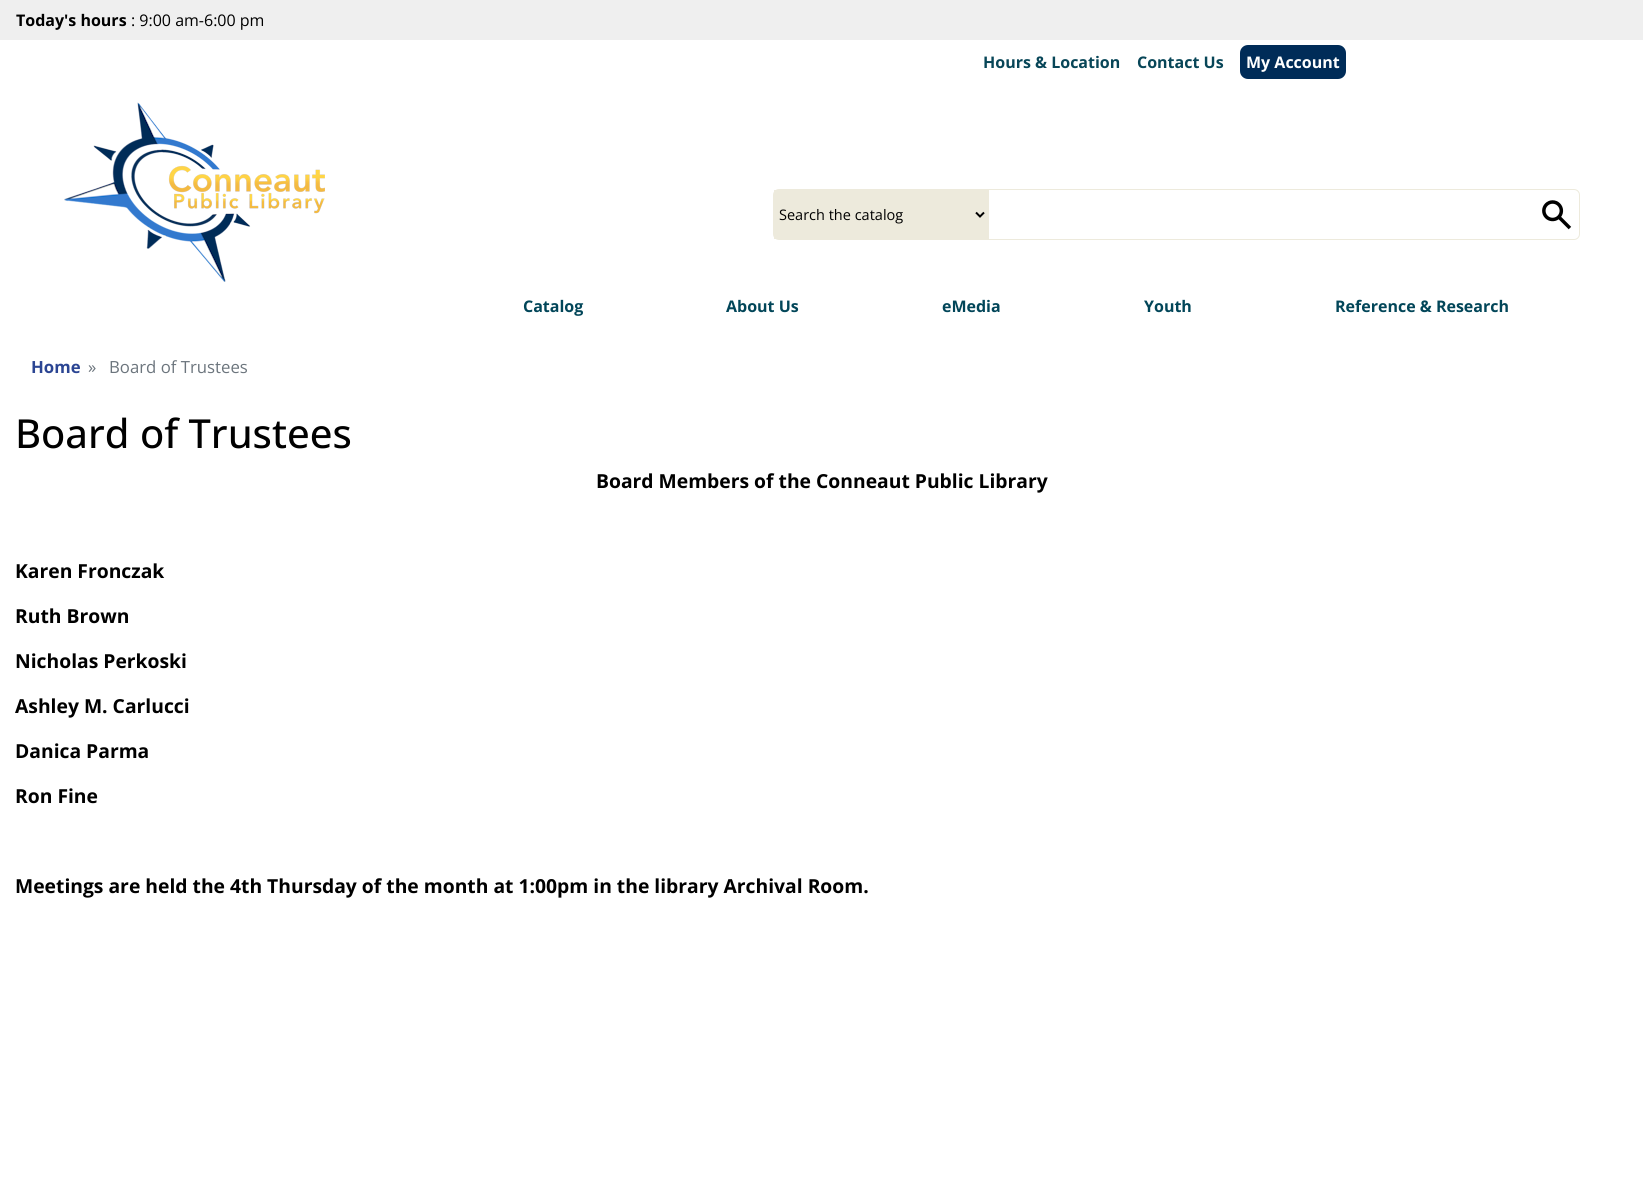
#include <cairo.h>
#include <math.h>
#include <stddef.h>

typedef struct { const char *family; double size; int italic, bold; unsigned color; } style_t;
static cairo_t *ctx;

static void ink(unsigned color) {
    cairo_set_source_rgb(ctx, (color >> 16) / 255.0, (color >> 8 & 255) / 255.0, (color & 255) / 255.0);
}

static void write(double x, double y, const char *s, const style_t *st) {
    cairo_select_font_face(ctx, st->family, st->italic ? CAIRO_FONT_SLANT_ITALIC : CAIRO_FONT_SLANT_NORMAL,
        st->bold ? CAIRO_FONT_WEIGHT_BOLD : CAIRO_FONT_WEIGHT_NORMAL);
    cairo_set_font_size(ctx, st->size);
    ink(st->color);
    cairo_move_to(ctx, x, y);
    cairo_show_text(ctx, s);
}

static void block(double x, double y, double w, double h, unsigned color) {
    ink(color);
    cairo_rectangle(ctx, x, y, w, h);
    cairo_fill(ctx);
}

static void round_path(double x, double y, double w, double h, double r) {
    cairo_new_sub_path(ctx);
    cairo_arc(ctx, x + w - r, y + h - r, r, 0, M_PI / 2);
    cairo_arc(ctx, x + r, y + h - r, r, M_PI / 2, M_PI);
    cairo_arc(ctx, x + r, y + r, r, M_PI, 1.5 * M_PI);
    cairo_arc(ctx, x + w - r, y + r, r, 1.5 * M_PI, 2 * M_PI);
    cairo_close_path(ctx);
}

static void paste(const char *path, double x, double y, double w, double h) {
    cairo_surface_t *image = cairo_image_surface_create_from_png(path);
    cairo_save(ctx);
    cairo_set_source_surface(ctx, image, x, y);
    cairo_rectangle(ctx, x, y, w, h);
    cairo_fill(ctx);
    cairo_restore(ctx);
    cairo_surface_destroy(image);
}

static const style_t s1 = {"Open Sans", 16, 0, 1, 0x000000};
static const style_t s2 = {"Open Sans", 16, 0, 0, 0x000000};
static const style_t s3 = {"Open Sans", 16, 0, 1, 0x084658};
static const style_t s4 = {"Open Sans", 16, 0, 1, 0xffffff};
static const style_t s5 = {"Open Sans", 14.5, 0, 0, 0x000000};
static const style_t s6 = {"Open Sans", 16, 0, 1, 0x024659};
static const style_t s7 = {"Open Sans", 16.75, 0, 1, 0x2b4593};
static const style_t s8 = {"Open Sans", 16.75, 0, 0, 0x6c757d};
static const style_t s9 = {"Open Sans Medium", 40, 0, 0, 0x000000};
static const style_t s10 = {"Open Sans", 19.3, 0, 1, 0x000000};

int main(void) {
    cairo_surface_t *surface = cairo_image_surface_create(CAIRO_FORMAT_RGB24, 1643, 1199);
    ctx = cairo_create(surface);
    cairo_font_options_t *options = cairo_font_options_create();
    cairo_font_options_set_hint_metrics(options, CAIRO_HINT_METRICS_OFF);
    cairo_font_options_set_hint_style(options, CAIRO_HINT_STYLE_NONE);
    cairo_set_font_options(ctx, options);
    cairo_set_miter_limit(ctx, 4);
    ink(0xffffff);
    cairo_paint(ctx);
    block(0, 0, 1643, 40, 0xefefef);
    write(16, 26, "Today's hours", &s1);
    write(131, 26, ": 9:00 am-6:00 pm", &s2);
    write(983, 68, "Hours & Location", &s3);
    write(1137, 68, "Contact Us", &s3);
    ink(0x002c58);
    round_path(1240, 45, 106, 34, 8);
    cairo_fill(ctx);
    write(1246, 68, "My Account", &s4);
    paste("pic1.png", 64, 102, 261, 180);
    round_path(773.5, 189.5, 806, 50, 5.5);
    ink(0xedeadc);
    cairo_set_line_width(ctx, 1);
    cairo_stroke(ctx);
    block(774, 190, 215, 49, 0xedeadc);
    cairo_new_path(ctx);
    cairo_move_to(ctx, 976, 212.5);
    cairo_line_to(ctx, 980, 216.5);
    cairo_line_to(ctx, 984, 212.5);
    ink(0x000000);
    cairo_set_line_width(ctx, 2);
    cairo_stroke(ctx);
    write(779, 220, "Search the catalog", &s5);
    paste("pic2.png", 1542, 200, 30, 30);
    write(523, 312, "Catalog", &s6);
    write(726, 312, "About Us", &s6);
    write(942, 312, "eMedia", &s6);
    write(1144, 312, "Youth", &s6);
    write(1335, 312, "Reference & Research", &s6);
    write(31, 373, "Home", &s7);
    write(88, 373, "»", &s8);
    write(109, 373, "Board of Trustees", &s8);
    write(15, 448, "Board of Trustees", &s9);
    write(596, 488, "Board Members of the Conneaut Public Library", &s10);
    write(15, 578, "Karen Fronczak", &s10);
    write(15, 623, "Ruth Brown", &s10);
    write(15, 668, "Nicholas Perkoski", &s10);
    write(15, 713, "Ashley M. Carlucci", &s10);
    write(15, 758, "Danica Parma", &s10);
    write(15, 803, "Ron Fine", &s10);
    write(15, 893, "Meetings are held the 4th Thursday of the month at 1:00pm in the library Archival Room.", &s10);
    cairo_surface_write_to_png(surface, "screenshot.png");
    cairo_font_options_destroy(options);
    cairo_destroy(ctx);
    cairo_surface_destroy(surface);
    return 0;
}
